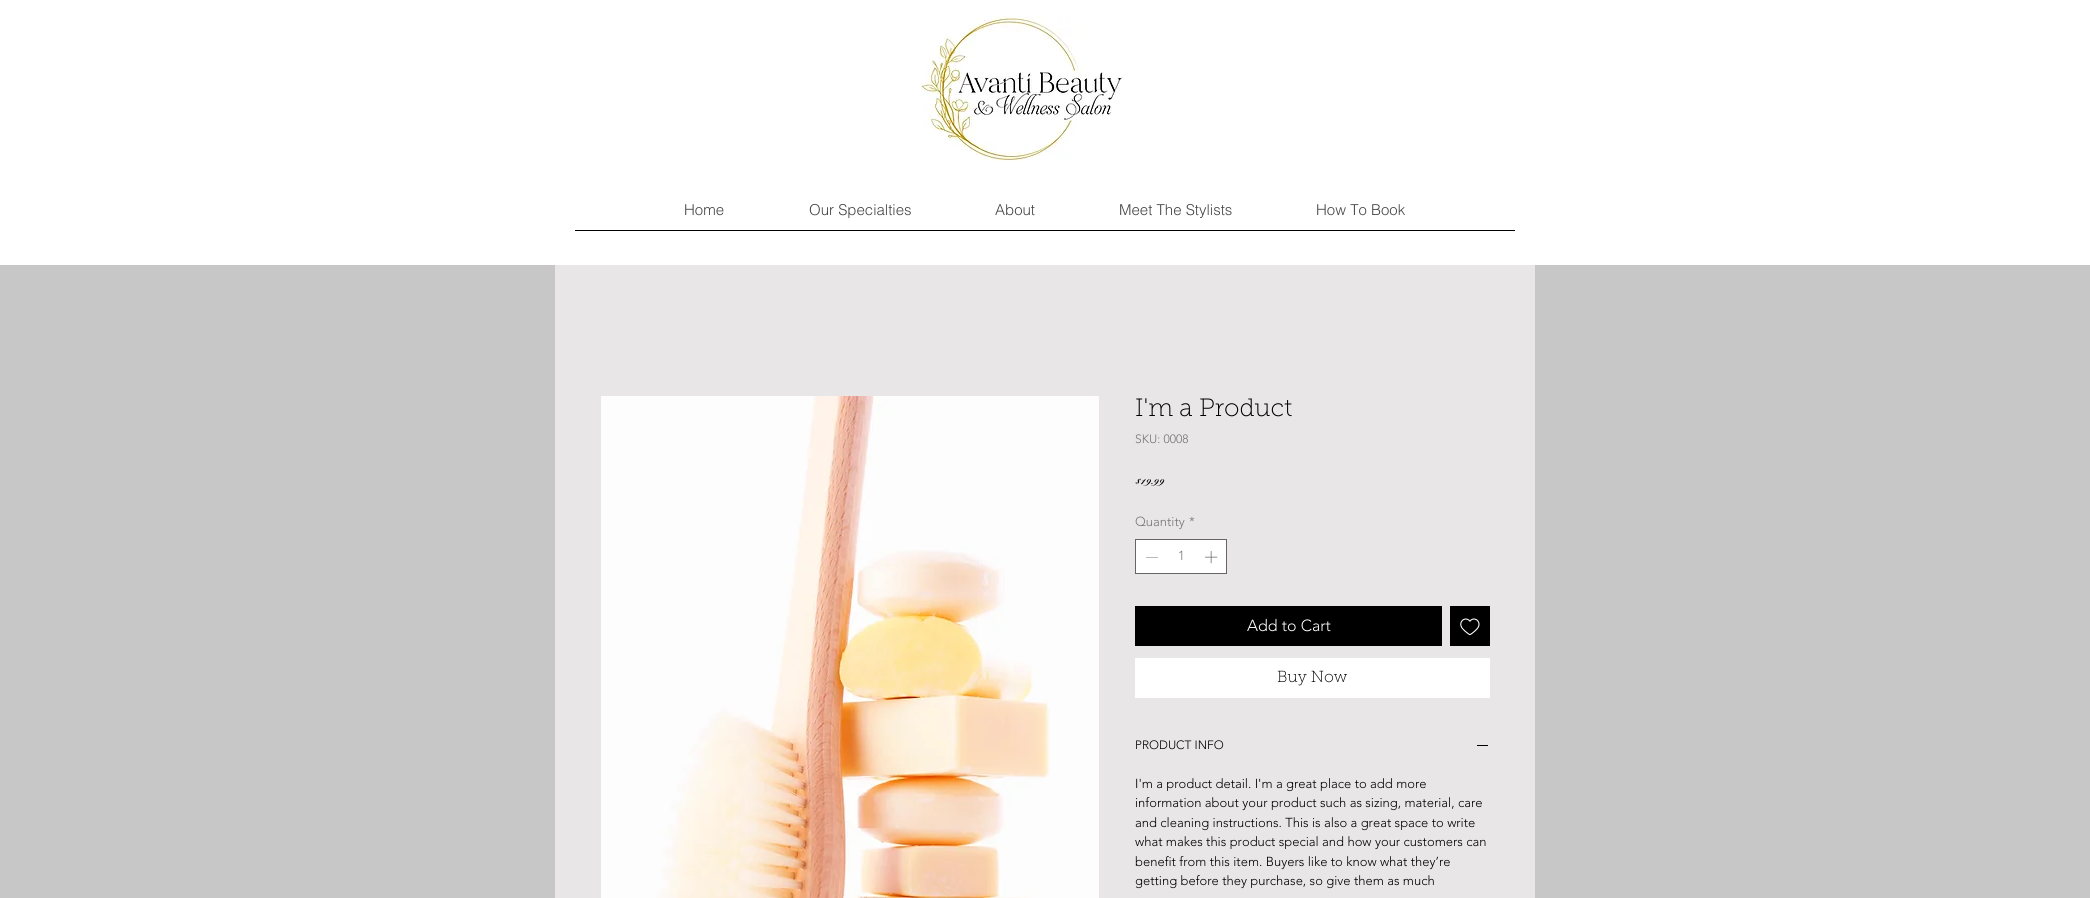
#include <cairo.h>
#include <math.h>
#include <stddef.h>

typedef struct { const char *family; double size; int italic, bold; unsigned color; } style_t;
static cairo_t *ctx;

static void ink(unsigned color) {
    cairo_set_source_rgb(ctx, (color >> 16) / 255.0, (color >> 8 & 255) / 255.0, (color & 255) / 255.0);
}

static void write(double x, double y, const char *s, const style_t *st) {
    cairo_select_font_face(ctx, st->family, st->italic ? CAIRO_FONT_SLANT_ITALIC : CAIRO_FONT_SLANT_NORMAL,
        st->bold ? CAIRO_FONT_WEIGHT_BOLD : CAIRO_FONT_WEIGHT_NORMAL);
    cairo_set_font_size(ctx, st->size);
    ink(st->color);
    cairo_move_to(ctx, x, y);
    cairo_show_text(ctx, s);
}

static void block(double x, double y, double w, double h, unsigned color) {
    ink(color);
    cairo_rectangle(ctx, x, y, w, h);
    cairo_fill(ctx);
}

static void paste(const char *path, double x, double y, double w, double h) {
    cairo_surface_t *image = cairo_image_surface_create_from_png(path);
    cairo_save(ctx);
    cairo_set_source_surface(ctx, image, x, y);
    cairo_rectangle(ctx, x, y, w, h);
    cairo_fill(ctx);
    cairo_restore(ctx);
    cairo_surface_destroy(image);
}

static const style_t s1 = {"helvetica Light", 15, 0, 0, 0x444444};
static const style_t s2 = {"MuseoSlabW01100 Thin", 25, 0, 0, 0x000000};
static const style_t s3 = {"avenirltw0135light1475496 Light", 12, 0, 0, 0x757575};
static const style_t s4 = {"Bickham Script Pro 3 SemiBold", 18, 0, 0, 0x000000};
static const style_t s5 = {"avenirltw0135light1475496 Light", 13, 0, 0, 0x757575};
static const style_t s6 = {"avenirltw0135light1475496 Light", 16, 0, 0, 0xffffff};
static const style_t s7 = {"MuseoSlabW01100 Thin", 16, 0, 0, 0x000000};
static const style_t s8 = {"avenirltw0135light1475496 Light", 12, 0, 0, 0x000000};
static const style_t s9 = {"avenirltw0135light1475496 Light", 13, 0, 0, 0x000000};

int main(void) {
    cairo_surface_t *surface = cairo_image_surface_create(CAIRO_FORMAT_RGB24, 2090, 898);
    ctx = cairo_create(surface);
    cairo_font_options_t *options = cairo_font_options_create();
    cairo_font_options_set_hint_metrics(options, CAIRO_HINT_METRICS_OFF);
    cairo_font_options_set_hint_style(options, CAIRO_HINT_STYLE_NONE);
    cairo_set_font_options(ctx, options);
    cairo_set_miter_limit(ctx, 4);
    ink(0xc7c7c7);
    cairo_paint(ctx);
    block(0, 0, 2090, 265, 0xffffff);
    paste("pic1.png", 921, 16, 202, 145);
    write(684, 215, "Home", &s1);
    write(809, 215, "Our Specialties", &s1);
    write(995, 215, "About", &s1);
    write(1119, 215, "Meet The Stylists", &s1);
    write(1316, 215, "How To Book", &s1);
    block(575, 230, 940, 1, 0x000000);
    block(555, 265, 980, 633, 0xe8e6e6);
    paste("pic2.png", 601, 396, 498, 502);
    write(1135, 416, "I'm a Product", &s2);
    write(1135, 443, "SKU: 0008", &s3);
    write(1135, 484, "$19.99", &s4);
    write(1135, 526, "Quantity", &s5);
    write(1189, 526, "*", &s5);
    ink(0xffffff);
    cairo_rectangle(ctx, 1135.5, 539.5, 91, 34);
    cairo_fill_preserve(ctx);
    ink(0x666666);
    cairo_set_line_width(ctx, 1);
    cairo_stroke(ctx);
    ink(0x757575);
    cairo_set_fill_rule(ctx, CAIRO_FILL_RULE_EVEN_ODD);
    cairo_new_path(ctx);
    cairo_move_to(ctx, 1158, 557);
    cairo_line_to(ctx, 1158, 557.5);
    cairo_line_to(ctx, 1146, 557.5);
    cairo_line_to(ctx, 1146, 557);
    cairo_close_path(ctx);
    cairo_fill(ctx);
    write(1178, 560, "1", &s5);
    paste("pic3.png", 1205, 551, 13, 13);
    block(1135, 606, 307, 40, 0x000000);
    write(1247, 631, "Add to Cart", &s6);
    block(1450, 606, 40, 40, 0x000000);
    paste("pic4.png", 1460, 618, 20, 18);
    block(1135, 658, 355, 40, 0xffffff);
    write(1277, 682, "Buy Now", &s7);
    write(1135, 749, "PRODUCT INFO", &s8);
    block(1477, 745, 11, 1, 0x000000);
    write(1135, 788, "I'm a product detail. I'm a great place to add more", &s9);
    write(1135, 807, "information about your product such as sizing, material, care", &s9);
    write(1135, 827, "and cleaning instructions. This is also a great space to write", &s9);
    write(1135, 846, "what makes this product special and how your customers can", &s9);
    write(1135, 866, "benefit from this item. Buyers like to know what they’re", &s9);
    write(1135, 885, "getting before they purchase, so give them as much", &s9);
    cairo_surface_write_to_png(surface, "screenshot.png");
    cairo_font_options_destroy(options);
    cairo_destroy(ctx);
    cairo_surface_destroy(surface);
    return 0;
}
